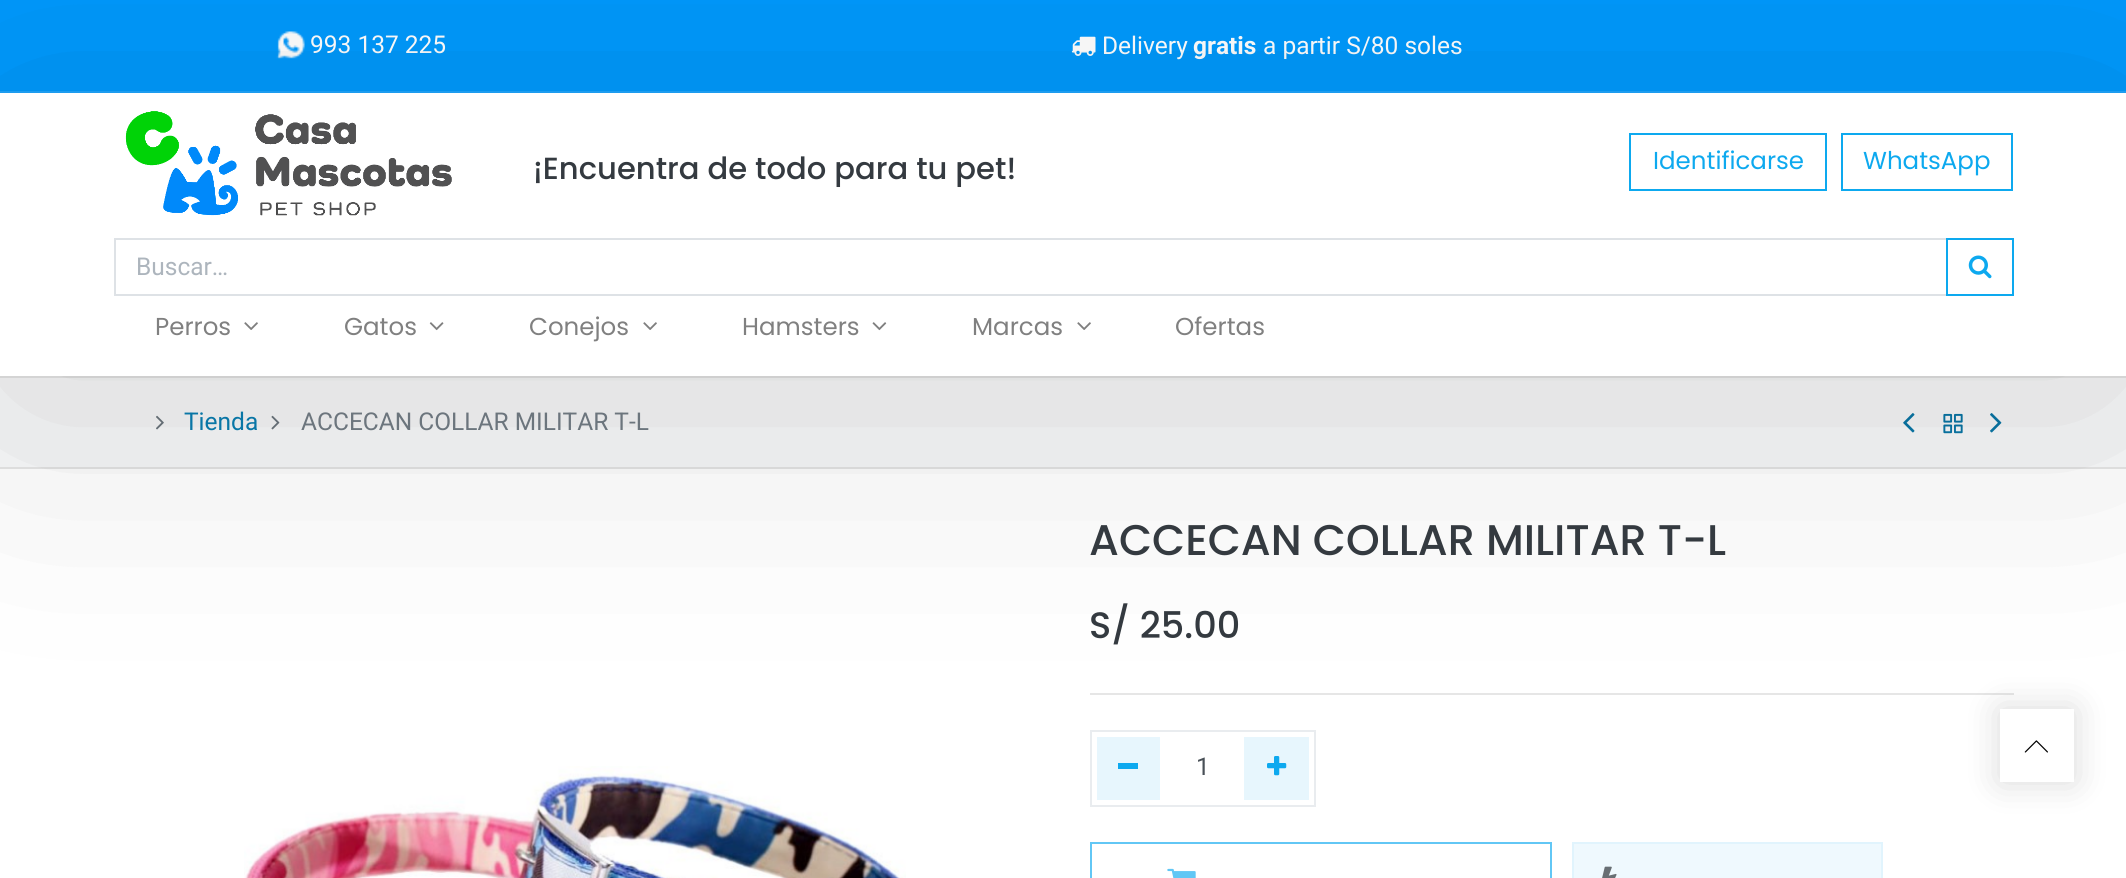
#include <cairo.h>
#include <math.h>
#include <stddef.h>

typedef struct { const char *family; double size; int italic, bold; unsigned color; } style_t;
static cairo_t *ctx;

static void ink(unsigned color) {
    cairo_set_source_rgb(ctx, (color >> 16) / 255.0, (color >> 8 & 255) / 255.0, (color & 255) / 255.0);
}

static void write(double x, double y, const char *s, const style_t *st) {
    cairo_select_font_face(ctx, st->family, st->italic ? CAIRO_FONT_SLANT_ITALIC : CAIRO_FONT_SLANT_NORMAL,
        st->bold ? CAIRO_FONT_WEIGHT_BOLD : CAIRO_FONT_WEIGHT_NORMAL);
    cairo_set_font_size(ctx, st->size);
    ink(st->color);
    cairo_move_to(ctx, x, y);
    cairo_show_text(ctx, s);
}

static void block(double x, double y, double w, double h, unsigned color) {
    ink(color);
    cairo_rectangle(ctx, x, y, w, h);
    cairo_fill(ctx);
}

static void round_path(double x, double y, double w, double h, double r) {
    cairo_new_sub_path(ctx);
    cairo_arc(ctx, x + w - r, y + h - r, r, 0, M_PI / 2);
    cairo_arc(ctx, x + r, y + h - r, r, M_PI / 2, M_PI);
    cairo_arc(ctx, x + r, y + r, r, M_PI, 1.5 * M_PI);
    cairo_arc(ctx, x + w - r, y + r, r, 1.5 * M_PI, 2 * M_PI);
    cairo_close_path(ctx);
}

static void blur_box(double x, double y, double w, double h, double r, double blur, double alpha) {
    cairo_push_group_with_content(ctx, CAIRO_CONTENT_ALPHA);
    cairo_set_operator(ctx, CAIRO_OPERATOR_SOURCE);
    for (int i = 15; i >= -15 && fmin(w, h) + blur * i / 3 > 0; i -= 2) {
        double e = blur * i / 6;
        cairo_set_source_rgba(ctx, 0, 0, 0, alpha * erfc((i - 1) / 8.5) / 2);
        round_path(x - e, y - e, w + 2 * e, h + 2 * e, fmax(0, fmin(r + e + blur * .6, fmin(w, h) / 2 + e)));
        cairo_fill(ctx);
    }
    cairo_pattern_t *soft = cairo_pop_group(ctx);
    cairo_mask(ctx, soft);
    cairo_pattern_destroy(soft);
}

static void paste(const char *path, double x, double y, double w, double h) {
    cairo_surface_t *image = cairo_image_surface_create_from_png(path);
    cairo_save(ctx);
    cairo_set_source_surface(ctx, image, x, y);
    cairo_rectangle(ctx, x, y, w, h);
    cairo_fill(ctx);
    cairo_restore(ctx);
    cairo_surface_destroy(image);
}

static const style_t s1 = {"Roboto", 24.5, 0, 0, 0xffffff};
static const style_t s2 = {"Roboto", 24.5, 0, 1, 0xffffff};
static const style_t s3 = {"Poppins Medium", 30.6, 0, 0, 0x343a40};
static const style_t s4 = {"Poppins", 24.5, 0, 0, 0x0da9ef};
static const style_t s5 = {"Roboto", 24.5, 0, 0, 0xadb5bd};
static const style_t s6 = {"Poppins", 24.5, 0, 0, 0x808080};
static const style_t s7 = {"Roboto", 24.5, 0, 0, 0x0976a6};
static const style_t s8 = {"Roboto", 24.5, 0, 0, 0x6c757d};
static const style_t s9 = {"Poppins Medium", 42.9, 0, 0, 0x343a40};
static const style_t s10 = {"Poppins Medium", 36.75, 0, 0, 0x343a40};
static const style_t s11 = {"Roboto", 24.5, 0, 0, 0x495057};

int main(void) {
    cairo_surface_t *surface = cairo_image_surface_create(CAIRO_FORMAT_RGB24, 2126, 878);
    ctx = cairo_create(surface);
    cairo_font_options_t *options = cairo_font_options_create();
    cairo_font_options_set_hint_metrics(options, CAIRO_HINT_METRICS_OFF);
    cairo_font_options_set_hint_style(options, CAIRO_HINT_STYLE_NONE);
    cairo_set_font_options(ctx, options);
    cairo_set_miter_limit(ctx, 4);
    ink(0xffffff);
    cairo_paint(ctx);
    block(0, 0, 2126, 91, 0x0099fd);
    block(0, 91, 2126, 2, 0x1fa5fd);
    paste("pic1.png", 276, 31, 29, 28);
    write(310, 53, "993 137 225", &s1);
    paste("pic2.png", 1071, 36, 25, 20);
    write(1102, 54, "Delivery", &s1);
    write(1193, 54, "gratis", &s2);
    write(1263, 54, "a partir S/80 soles", &s1);
    block(0, 378, 2126, 89, 0xf8f9fa);
    block(0, 376, 2126, 2, 0xe5e5e5);
    block(0, 467, 2126, 2, 0xe5e5e5);
    paste("pic8.png", 156, 415, 8, 15);
    paste("pic9.png", 271, 415, 9, 15);
    paste("pic10.png", 1903, 413, 12, 20);
    paste("pic11.png", 1943, 413, 20, 21);
    paste("pic12.png", 1990, 413, 12, 20);
    block(1090, 693, 924, 2, 0xe6e6e6);
    cairo_rectangle(ctx, 1091, 731, 224, 75);
    ink(0xe9ecef);
    cairo_stroke(ctx);
    block(1097, 737, 63, 63, 0xe7f6fd);
    block(1118, 763, 20, 6, 0x0da9ef);
    block(1244, 737, 65, 63, 0xe7f6fd);
    paste("pic13.png", 1267, 756, 20, 20);
    paste("pic16.png", 244, 766, 662, 112);
    ink(0x000000);
    blur_box(2000, 709, 74, 73, 0, 17.5, 0.15);
    block(2000, 709, 74, 73, 0xffffff);
    paste("pic17.png", 2024, 740, 24, 13);
    cairo_save(ctx);
    cairo_set_fill_rule(ctx, CAIRO_FILL_RULE_EVEN_ODD);
    cairo_new_path(ctx);
    cairo_move_to(ctx, 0, 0);
    cairo_line_to(ctx, 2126, 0);
    cairo_line_to(ctx, 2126, 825);
    cairo_line_to(ctx, 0, 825);
    cairo_close_path(ctx);
    cairo_move_to(ctx, 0, 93);
    cairo_line_to(ctx, 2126, 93);
    cairo_line_to(ctx, 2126, 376);
    cairo_line_to(ctx, 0, 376);
    cairo_close_path(ctx);
    cairo_clip(ctx);
    ink(0x000000);
    blur_box(0, 121, 2126, 283, 0, 140, 0.15);
    cairo_restore(ctx);
    paste("pic3.png", 125, 111, 327, 105);
    write(533, 179, "¡Encuentra de todo para tu pet!", &s3);
    cairo_rectangle(ctx, 1630, 134, 196, 56);
    ink(0x0da9ef);
    cairo_stroke(ctx);
    write(1653, 169, "Identificarse", &s4);
    cairo_rectangle(ctx, 1842, 134, 170, 56);
    cairo_stroke(ctx);
    write(1863, 169, "WhatsApp", &s4);
    cairo_rectangle(ctx, 115, 239, 1832, 56);
    ink(0xdee2e6);
    cairo_stroke(ctx);
    write(136, 275, "Buscar…", &s5);
    cairo_rectangle(ctx, 1947, 239, 66, 56);
    ink(0x0da9ef);
    cairo_stroke(ctx);
    paste("pic4.png", 1968, 255, 24, 24);
    write(155, 335, "Perros", &s6);
    paste("pic5.png", 244, 322, 14, 8);
    write(344, 335, "Gatos", &s6);
    paste("pic6.png", 429, 322, 15, 9);
    write(529, 335, "Conejos", &s6);
    paste("pic5.png", 643, 322, 14, 8);
    write(742, 335, "Hamsters", &s6);
    paste("pic7.png", 872, 322, 15, 9);
    write(972, 335, "Marcas", &s6);
    paste("pic5.png", 1077, 322, 14, 8);
    write(1175, 335, "Ofertas", &s6);
    write(184, 430, "Tienda", &s7);
    write(301, 430, "ACCECAN COLLAR MILITAR T-L", &s8);
    write(1089, 555, "ACCECAN COLLAR MILITAR T-L", &s9);
    write(1089, 638, "S/ 25.00", &s10);
    write(1196, 775, "1", &s11);
    cairo_rectangle(ctx, 1091, 843, 460, 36);
    ink(0x62c7f5);
    cairo_stroke(ctx);
    paste("pic14.png", 1167, 868, 29, 10);
    ink(0xeff9fe);
    cairo_rectangle(ctx, 1573, 843, 309, 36);
    cairo_fill_preserve(ctx);
    ink(0xe1f4fd);
    cairo_stroke(ctx);
    paste("pic15.png", 1602, 866, 15, 12);
    cairo_surface_write_to_png(surface, "screenshot.png");
    cairo_font_options_destroy(options);
    cairo_destroy(ctx);
    cairo_surface_destroy(surface);
    return 0;
}
